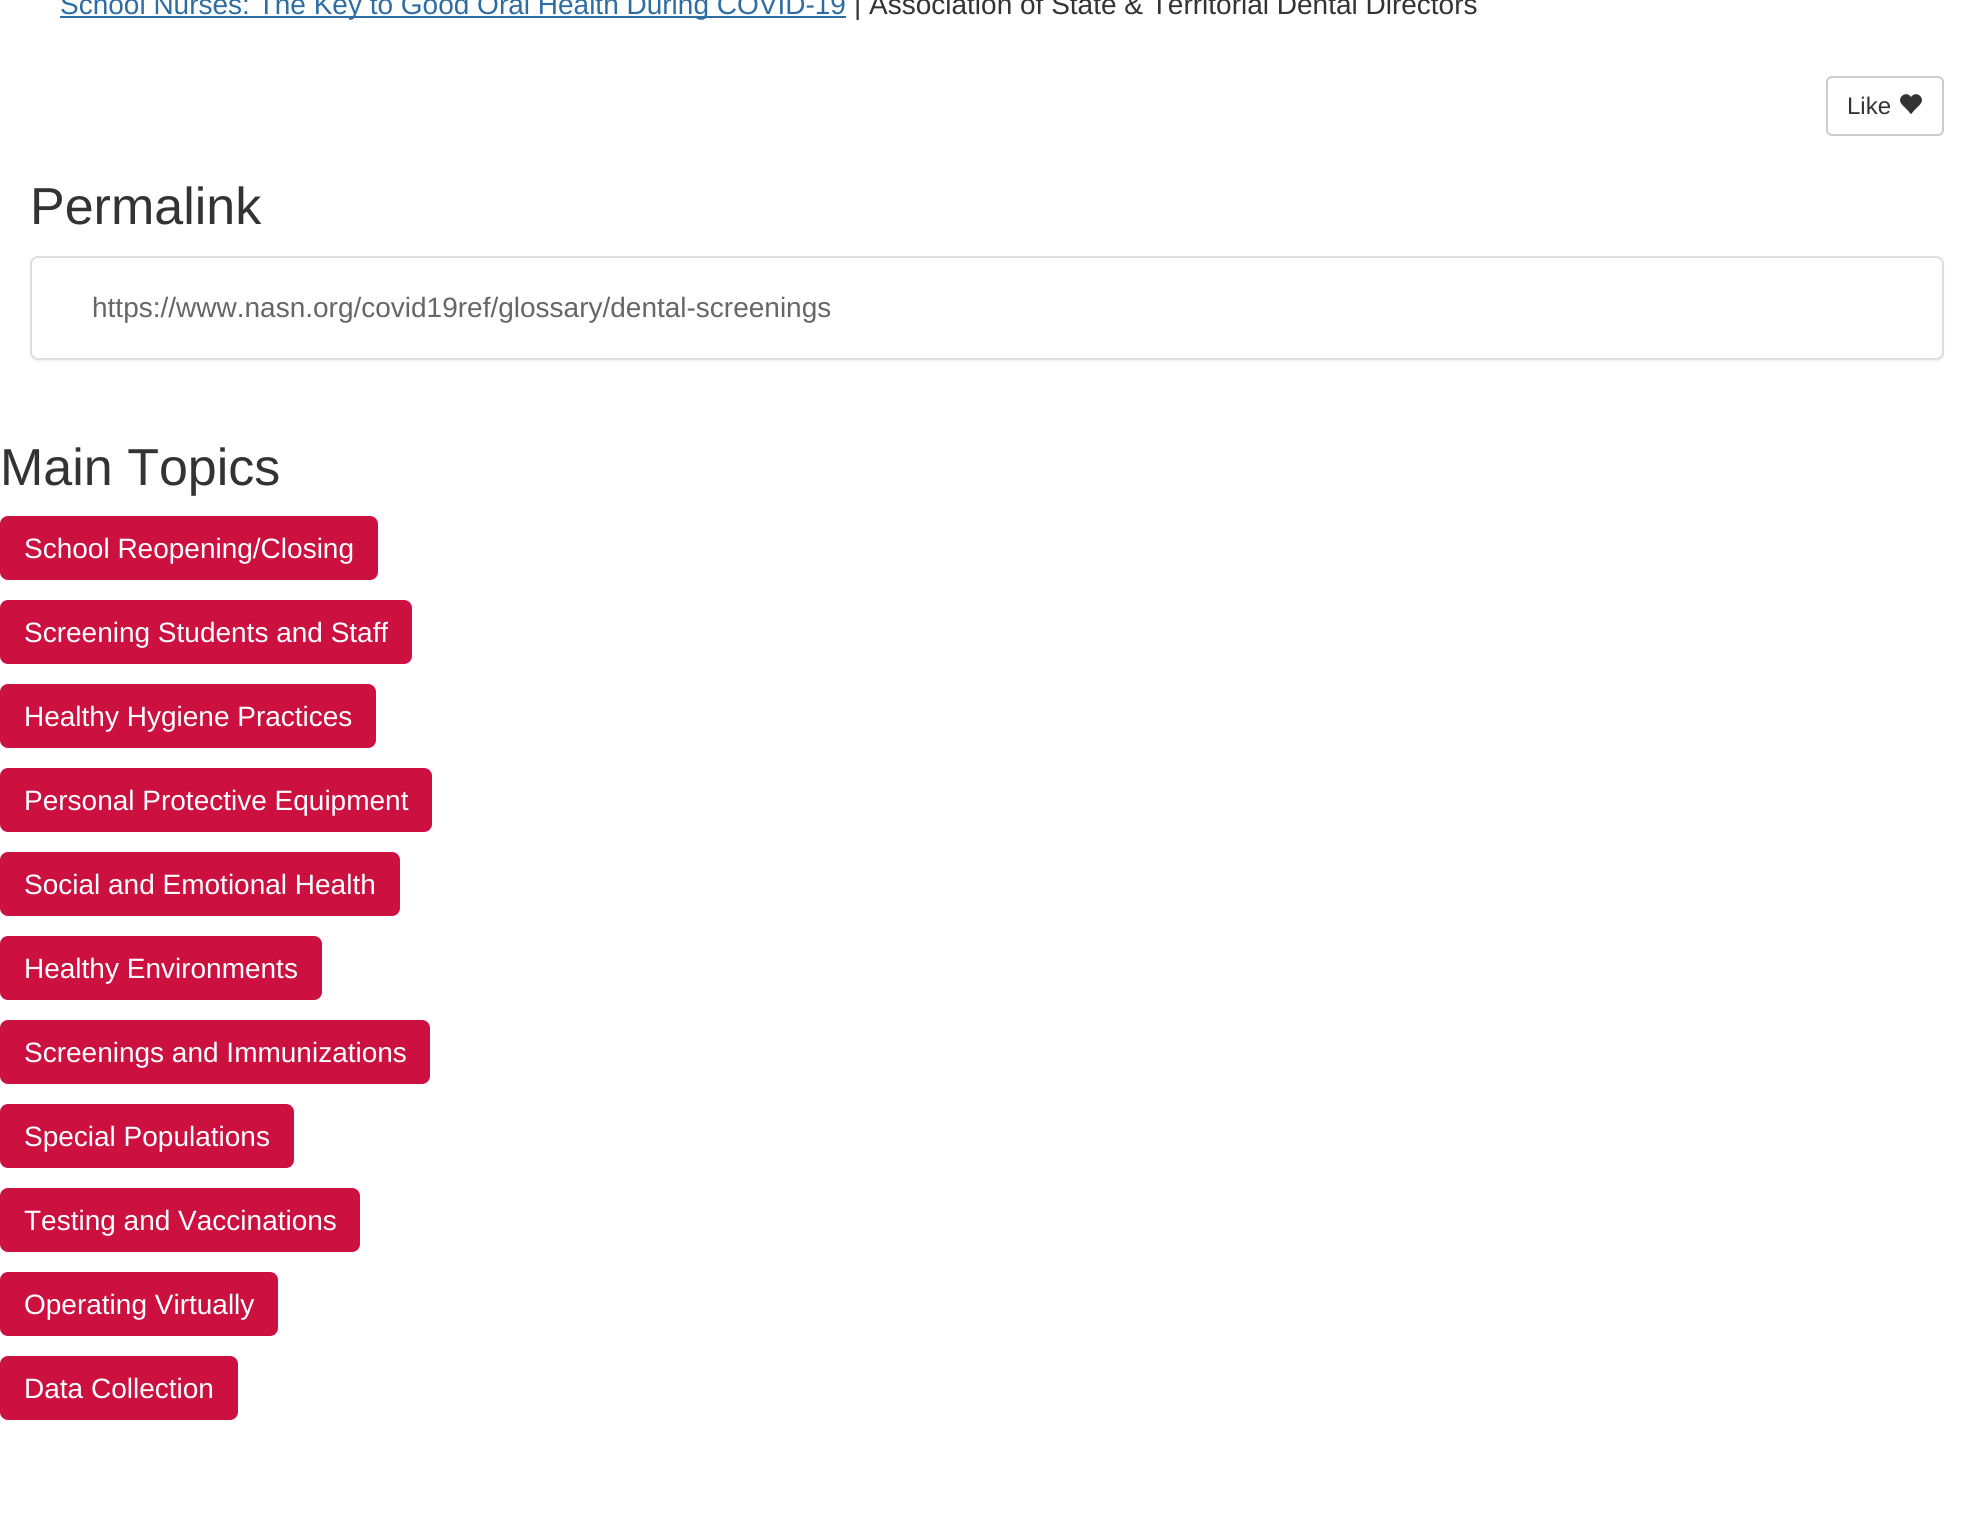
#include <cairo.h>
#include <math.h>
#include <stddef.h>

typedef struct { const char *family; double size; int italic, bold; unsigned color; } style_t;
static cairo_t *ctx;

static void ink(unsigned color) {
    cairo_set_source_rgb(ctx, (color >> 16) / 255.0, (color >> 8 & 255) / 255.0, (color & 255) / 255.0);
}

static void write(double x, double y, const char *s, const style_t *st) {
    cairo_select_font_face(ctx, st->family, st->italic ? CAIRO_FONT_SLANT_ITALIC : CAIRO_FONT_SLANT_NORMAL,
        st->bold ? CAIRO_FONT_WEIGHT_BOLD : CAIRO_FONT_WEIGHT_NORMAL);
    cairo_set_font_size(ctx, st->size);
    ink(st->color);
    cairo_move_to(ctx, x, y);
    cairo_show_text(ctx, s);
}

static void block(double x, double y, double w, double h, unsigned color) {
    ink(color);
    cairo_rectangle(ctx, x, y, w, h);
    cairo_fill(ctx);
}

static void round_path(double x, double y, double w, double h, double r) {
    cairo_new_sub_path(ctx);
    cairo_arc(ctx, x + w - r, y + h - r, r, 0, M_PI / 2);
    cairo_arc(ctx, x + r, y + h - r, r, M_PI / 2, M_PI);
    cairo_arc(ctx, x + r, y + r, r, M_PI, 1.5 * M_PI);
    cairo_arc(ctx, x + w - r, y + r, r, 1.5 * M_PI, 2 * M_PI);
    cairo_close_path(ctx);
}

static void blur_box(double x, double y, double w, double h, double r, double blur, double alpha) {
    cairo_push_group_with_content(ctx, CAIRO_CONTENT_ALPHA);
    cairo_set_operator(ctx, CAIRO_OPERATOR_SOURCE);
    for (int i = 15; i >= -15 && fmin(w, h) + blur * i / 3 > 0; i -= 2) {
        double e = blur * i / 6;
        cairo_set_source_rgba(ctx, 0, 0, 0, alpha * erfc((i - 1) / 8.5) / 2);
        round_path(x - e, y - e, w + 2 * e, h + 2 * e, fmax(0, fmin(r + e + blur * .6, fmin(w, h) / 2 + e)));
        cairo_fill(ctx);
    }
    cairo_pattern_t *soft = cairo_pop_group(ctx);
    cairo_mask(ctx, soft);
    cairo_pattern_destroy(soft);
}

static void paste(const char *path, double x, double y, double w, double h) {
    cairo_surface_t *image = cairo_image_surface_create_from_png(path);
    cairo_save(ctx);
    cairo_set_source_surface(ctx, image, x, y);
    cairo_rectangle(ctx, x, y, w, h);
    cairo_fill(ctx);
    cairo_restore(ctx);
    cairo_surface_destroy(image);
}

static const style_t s1 = {"Liberation Sans", 28, 0, 0, 0x2e6da4};
static const style_t s2 = {"Liberation Sans", 28, 0, 0, 0x333333};
static const style_t s3 = {"Liberation Sans", 24, 0, 0, 0x333333};
static const style_t s4 = {"Liberation Sans", 52, 0, 0, 0x333333};
static const style_t s5 = {"Liberation Sans", 28, 0, 0, 0x666666};
static const style_t s6 = {"Liberation Sans", 28, 0, 0, 0xffffff};

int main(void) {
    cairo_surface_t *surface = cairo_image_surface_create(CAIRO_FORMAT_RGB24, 1974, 1521);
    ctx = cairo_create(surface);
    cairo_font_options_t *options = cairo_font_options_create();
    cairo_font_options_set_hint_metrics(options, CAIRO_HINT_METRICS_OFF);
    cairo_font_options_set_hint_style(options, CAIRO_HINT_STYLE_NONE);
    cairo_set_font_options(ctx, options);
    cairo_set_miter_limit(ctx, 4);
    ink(0xffffff);
    cairo_paint(ctx);
    block(60, 16, 786, 2, 0x2e6da4);
    write(60, 14, "School Nurses: The Key to Good Oral Health During COVID-19", &s1);
    write(854, 14, "| Association of State & Territorial Dental Directors", &s2);
    round_path(1827, 77, 116, 58, 5);
    ink(0xcccccc);
    cairo_stroke(ctx);
    write(1847, 114, "Like", &s3);
    paste("pic1.png", 1900, 94, 22, 21);
    write(30, 224, "Permalink", &s4);
    ink(0x000000);
    blur_box(30, 258, 1914, 104, 8, 1, 0.05);
    ink(0xffffff);
    round_path(31, 257, 1912, 102, 7);
    cairo_fill_preserve(ctx);
    ink(0xdddddd);
    cairo_stroke(ctx);
    write(92, 317, "https://www.nasn.org/covid19ref/glossary/dental-screenings", &s5);
    write(0, 485, "Main Topics", &s4);
    ink(0xcc1141);
    round_path(0, 516, 378, 64, 8);
    cairo_fill(ctx);
    write(24, 558, "School Reopening/Closing", &s6);
    ink(0xcc1141);
    round_path(0, 600, 412, 64, 8);
    cairo_fill(ctx);
    write(24, 642, "Screening Students and Staff", &s6);
    ink(0xcc1141);
    round_path(0, 684, 376, 64, 8);
    cairo_fill(ctx);
    write(24, 726, "Healthy Hygiene Practices", &s6);
    ink(0xcc1141);
    round_path(0, 768, 432, 64, 8);
    cairo_fill(ctx);
    write(24, 810, "Personal Protective Equipment", &s6);
    ink(0xcc1141);
    round_path(0, 852, 400, 64, 8);
    cairo_fill(ctx);
    write(24, 894, "Social and Emotional Health", &s6);
    ink(0xcc1141);
    round_path(0, 936, 322, 64, 8);
    cairo_fill(ctx);
    write(24, 978, "Healthy Environments", &s6);
    ink(0xcc1141);
    round_path(0, 1020, 430, 64, 8);
    cairo_fill(ctx);
    write(24, 1062, "Screenings and Immunizations", &s6);
    ink(0xcc1141);
    round_path(0, 1104, 294, 64, 8);
    cairo_fill(ctx);
    write(24, 1146, "Special Populations", &s6);
    ink(0xcc1141);
    round_path(0, 1188, 360, 64, 8);
    cairo_fill(ctx);
    write(24, 1230, "Testing and Vaccinations", &s6);
    ink(0xcc1141);
    round_path(0, 1272, 278, 64, 8);
    cairo_fill(ctx);
    write(24, 1314, "Operating Virtually", &s6);
    ink(0xcc1141);
    round_path(0, 1356, 238, 64, 8);
    cairo_fill(ctx);
    write(24, 1398, "Data Collection", &s6);
    cairo_surface_write_to_png(surface, "screenshot.png");
    cairo_font_options_destroy(options);
    cairo_destroy(ctx);
    cairo_surface_destroy(surface);
    return 0;
}
